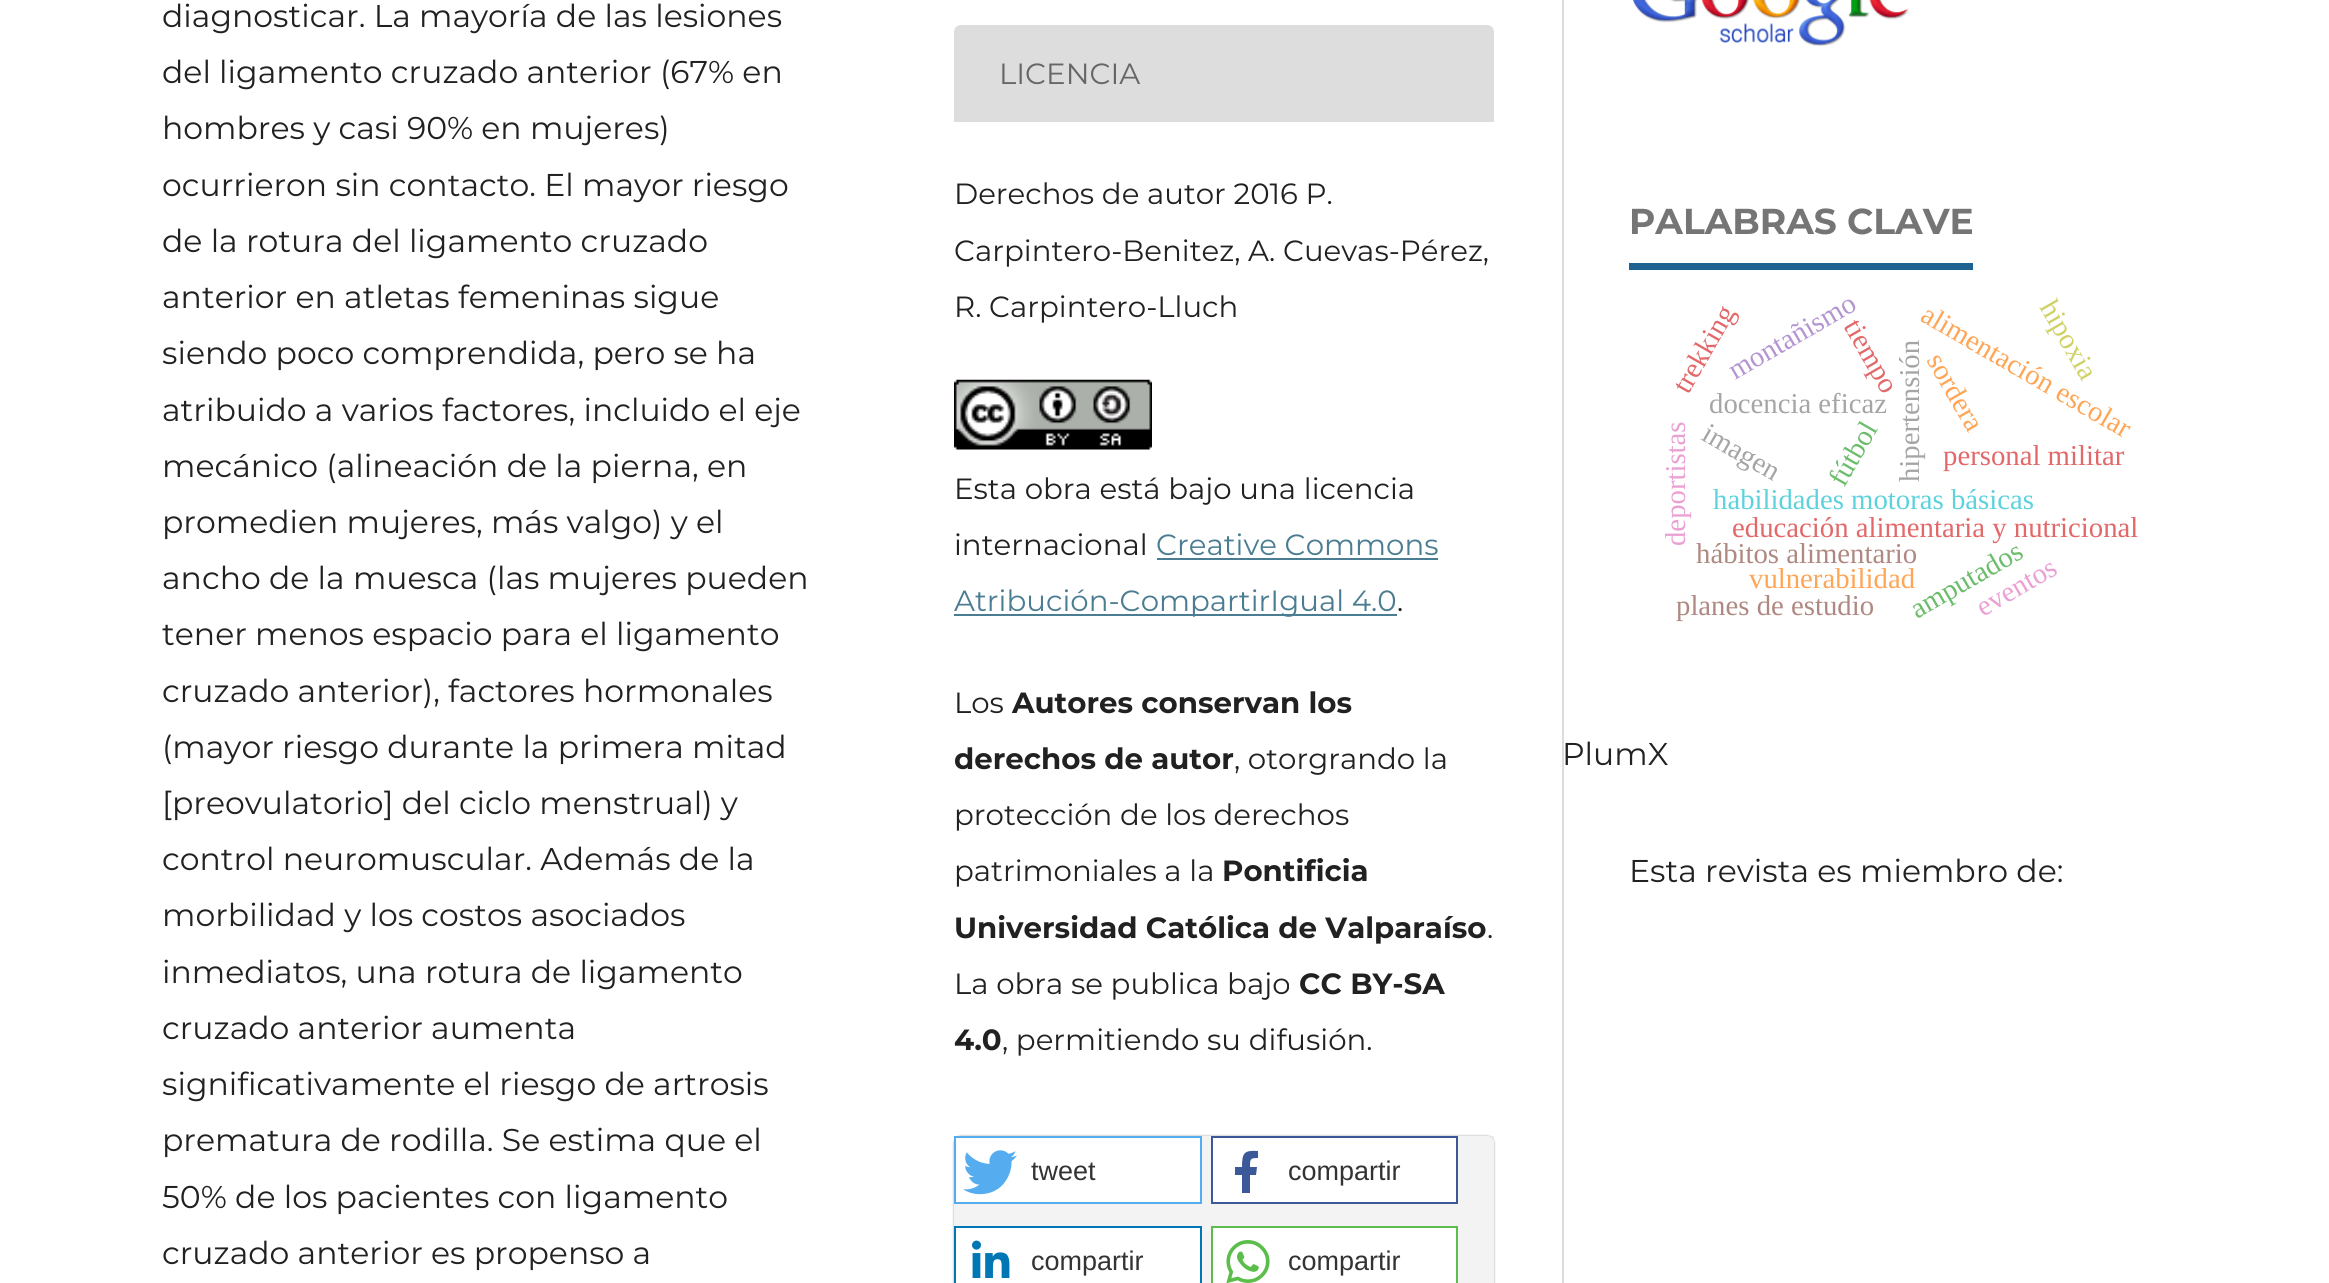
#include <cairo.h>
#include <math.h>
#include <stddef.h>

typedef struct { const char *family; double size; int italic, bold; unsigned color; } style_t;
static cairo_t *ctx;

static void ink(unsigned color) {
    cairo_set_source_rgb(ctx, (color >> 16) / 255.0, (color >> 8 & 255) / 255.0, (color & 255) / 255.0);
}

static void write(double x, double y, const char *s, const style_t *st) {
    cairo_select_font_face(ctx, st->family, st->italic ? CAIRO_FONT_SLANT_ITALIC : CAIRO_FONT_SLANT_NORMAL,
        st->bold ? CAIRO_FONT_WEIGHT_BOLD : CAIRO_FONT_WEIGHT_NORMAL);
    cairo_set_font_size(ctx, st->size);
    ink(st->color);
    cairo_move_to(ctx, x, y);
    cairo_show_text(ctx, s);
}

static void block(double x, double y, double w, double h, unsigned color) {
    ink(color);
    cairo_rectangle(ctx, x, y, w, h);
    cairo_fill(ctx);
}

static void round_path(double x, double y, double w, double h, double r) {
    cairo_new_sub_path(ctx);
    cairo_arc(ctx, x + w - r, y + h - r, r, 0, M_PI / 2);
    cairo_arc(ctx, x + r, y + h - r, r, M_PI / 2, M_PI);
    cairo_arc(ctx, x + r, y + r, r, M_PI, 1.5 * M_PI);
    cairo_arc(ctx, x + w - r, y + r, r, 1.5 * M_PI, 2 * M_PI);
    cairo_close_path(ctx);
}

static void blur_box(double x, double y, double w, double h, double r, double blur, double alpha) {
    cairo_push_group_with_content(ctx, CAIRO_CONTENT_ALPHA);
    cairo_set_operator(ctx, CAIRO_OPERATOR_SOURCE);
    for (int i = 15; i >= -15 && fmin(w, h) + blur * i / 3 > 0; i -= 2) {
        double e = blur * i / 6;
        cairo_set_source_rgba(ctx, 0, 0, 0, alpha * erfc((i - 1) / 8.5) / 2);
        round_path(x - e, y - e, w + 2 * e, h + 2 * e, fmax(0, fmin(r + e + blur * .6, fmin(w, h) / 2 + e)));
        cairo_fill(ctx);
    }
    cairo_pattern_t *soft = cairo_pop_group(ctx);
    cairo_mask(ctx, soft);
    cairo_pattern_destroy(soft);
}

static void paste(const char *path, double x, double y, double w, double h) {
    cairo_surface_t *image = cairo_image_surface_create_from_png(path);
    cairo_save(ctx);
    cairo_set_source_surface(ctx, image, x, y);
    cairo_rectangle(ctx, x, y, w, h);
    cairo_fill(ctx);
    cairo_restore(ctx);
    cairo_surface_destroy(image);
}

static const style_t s1 = {"Montserrat", 31.5, 0, 0, 0x212121};
static const style_t s2 = {"Montserrat", 29.25, 0, 0, 0x666666};
static const style_t s3 = {"Montserrat", 29.25, 0, 0, 0x212121};
static const style_t s4 = {"Montserrat", 29.25, 0, 0, 0x4b7d92};
static const style_t s5 = {"Montserrat", 29.25, 0, 1, 0x212121};
static const style_t s6 = {"Liberation Sans", 27, 0, 0, 0x333333};
static const style_t s7 = {"Montserrat", 36, 0, 1, 0x757575};
static const style_t s8 = {"Liberation Serif", 28.75, 0, 0, 0xe26869};
static const style_t s9 = {"Liberation Serif", 28.75, 0, 0, 0xb495d1};
static const style_t s10 = {"Liberation Serif", 28.75, 0, 0, 0xa5a5a5};
static const style_t s11 = {"Liberation Serif", 28.75, 0, 0, 0xffa556};
static const style_t s12 = {"Liberation Serif", 28.75, 0, 0, 0xd0d164};
static const style_t s13 = {"Liberation Serif", 28.75, 0, 0, 0xeba0d4};
static const style_t s14 = {"Liberation Serif", 28.75, 0, 0, 0x6bbd6b};
static const style_t s15 = {"Liberation Serif", 28.75, 0, 0, 0x5dd2dd};
static const style_t s16 = {"Liberation Serif", 28.75, 0, 0, 0xaf8981};

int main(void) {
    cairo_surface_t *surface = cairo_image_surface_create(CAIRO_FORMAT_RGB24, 2329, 1283);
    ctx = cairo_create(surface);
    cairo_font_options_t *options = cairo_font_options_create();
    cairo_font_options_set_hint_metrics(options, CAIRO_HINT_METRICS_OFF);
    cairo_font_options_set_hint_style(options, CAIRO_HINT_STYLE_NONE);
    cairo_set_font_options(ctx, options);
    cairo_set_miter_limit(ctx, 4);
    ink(0xffffff);
    cairo_paint(ctx);
    write(162, 27, "diagnosticar. La mayoría de las lesiones", &s1);
    write(162, 83, "del ligamento cruzado anterior (67% en", &s1);
    write(162, 139, "hombres y casi 90% en mujeres)", &s1);
    write(162, 196, "ocurrieron sin contacto. El mayor riesgo", &s1);
    write(162, 252, "de la rotura del ligamento cruzado", &s1);
    write(162, 308, "anterior en atletas femeninas sigue", &s1);
    write(162, 364, "siendo poco comprendida, pero se ha", &s1);
    write(162, 421, "atribuido a varios factores, incluido el eje", &s1);
    write(162, 477, "mecánico (alineación de la pierna, en", &s1);
    write(162, 533, "promedien mujeres, más valgo) y el", &s1);
    write(162, 589, "ancho de la muesca (las mujeres pueden", &s1);
    write(162, 645, "tener menos espacio para el ligamento", &s1);
    write(162, 702, "cruzado anterior), factores hormonales", &s1);
    write(162, 758, "(mayor riesgo durante la primera mitad", &s1);
    write(162, 814, "[preovulatorio] del ciclo menstrual) y", &s1);
    write(162, 870, "control neuromuscular. Además de la", &s1);
    write(162, 926, "morbilidad y los costos asociados", &s1);
    write(162, 983, "inmediatos, una rotura de ligamento", &s1);
    write(162, 1039, "cruzado anterior aumenta", &s1);
    write(162, 1095, "significativamente el riesgo de artrosis", &s1);
    write(162, 1151, "prematura de rodilla. Se estima que el", &s1);
    write(162, 1208, "50% de los pacientes con ligamento", &s1);
    write(162, 1264, "cruzado anterior es propenso a", &s1);
    ink(0xdddddd);
    cairo_new_path(ctx);
    cairo_move_to(ctx, 961, 25);
    cairo_line_to(ctx, 1487, 25);
    cairo_curve_to(ctx, 1491, 25, 1494, 28, 1494, 32);
    cairo_line_to(ctx, 1494, 122);
    cairo_line_to(ctx, 954, 122);
    cairo_line_to(ctx, 954, 32);
    cairo_curve_to(ctx, 954, 28, 957, 25, 961, 25);
    cairo_close_path(ctx);
    cairo_fill(ctx);
    write(999, 84, "LICENCIA", &s2);
    write(954, 204, "Derechos de autor 2016 P.", &s3);
    write(954, 261, "Carpintero-Benitez, A. Cuevas-Pérez,", &s3);
    write(954, 317, "R. Carpintero-Lluch", &s3);
    paste("pic1.png", 954, 379, 198, 71);
    write(954, 499, "Esta obra está bajo una licencia", &s3);
    write(954, 555, "internacional", &s3);
    write(1156, 555, "Creative Commons", &s4);
    block(1157, 558, 281, 2, 0x4b7d92);
    block(954, 614, 443, 2, 0x4b7d92);
    write(954, 611, "Atribución-CompartirIgual 4.0", &s4);
    write(1397, 611, ".", &s3);
    write(954, 713, "Los", &s3);
    write(1012, 713, "Autores conservan los", &s5);
    write(954, 769, "derechos de autor", &s5);
    write(1234, 769, ", otorgrando la", &s3);
    write(954, 825, "protección de los derechos", &s3);
    write(954, 881, "patrimoniales a la", &s3);
    write(1222, 881, "Pontificia", &s5);
    write(954, 938, "Universidad Católica de Valparaíso", &s5);
    write(1487, 938, ".", &s3);
    write(954, 994, "La obra se publica bajo", &s3);
    write(1299, 994, "CC BY-SA", &s5);
    write(954, 1050, "4.0", &s5);
    write(1002, 1050, ", permitiendo su difusión.", &s3);
    cairo_save(ctx);
    cairo_set_fill_rule(ctx, CAIRO_FILL_RULE_EVEN_ODD);
    cairo_new_path(ctx);
    cairo_move_to(ctx, 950, 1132);
    cairo_line_to(ctx, 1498, 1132);
    cairo_line_to(ctx, 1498, 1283);
    cairo_line_to(ctx, 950, 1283);
    cairo_close_path(ctx);
    cairo_move_to(ctx, 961, 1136);
    cairo_line_to(ctx, 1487, 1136);
    cairo_curve_to(ctx, 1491, 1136, 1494, 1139, 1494, 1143);
    cairo_line_to(ctx, 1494, 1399);
    cairo_curve_to(ctx, 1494, 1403, 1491, 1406, 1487, 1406);
    cairo_line_to(ctx, 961, 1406);
    cairo_curve_to(ctx, 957, 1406, 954, 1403, 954, 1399);
    cairo_line_to(ctx, 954, 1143);
    cairo_curve_to(ctx, 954, 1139, 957, 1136, 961, 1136);
    cairo_close_path(ctx);
    cairo_clip(ctx);
    ink(0x000000);
    blur_box(954, 1136, 540, 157, 7, 1, 0.4);
    cairo_restore(ctx);
    cairo_set_source_rgba(ctx, 0, 0, 0, 0.05);
    cairo_rectangle(ctx, 954, 1136, 540, 147);
    cairo_fill(ctx);
    ink(0xffffff);
    cairo_rectangle(ctx, 955, 1137, 246, 66);
    cairo_fill_preserve(ctx);
    ink(0x55acee);
    cairo_stroke(ctx);
    paste("pic2.png", 963, 1150, 54, 45);
    write(1031, 1180, "tweet", &s6);
    ink(0xffffff);
    cairo_rectangle(ctx, 1212, 1137, 245, 66);
    cairo_fill_preserve(ctx);
    ink(0x3b5998);
    cairo_stroke(ctx);
    cairo_new_path(ctx);
    cairo_move_to(ctx, 1256, 1175);
    cairo_line_to(ctx, 1250, 1175);
    cairo_line_to(ctx, 1250, 1193);
    cairo_line_to(ctx, 1242, 1193);
    cairo_line_to(ctx, 1242, 1175);
    cairo_line_to(ctx, 1235, 1175);
    cairo_line_to(ctx, 1235, 1167);
    cairo_line_to(ctx, 1242, 1167);
    cairo_curve_to(ctx, 1242, 1153, 1244, 1150, 1258, 1151);
    cairo_line_to(ctx, 1258, 1158);
    cairo_curve_to(ctx, 1250, 1158, 1250, 1159, 1250, 1167);
    cairo_line_to(ctx, 1257, 1167);
    cairo_close_path(ctx);
    cairo_fill(ctx);
    write(1288, 1180, "compartir", &s6);
    ink(0xffffff);
    cairo_rectangle(ctx, 955, 1227, 246, 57);
    cairo_fill_preserve(ctx);
    ink(0x0077b5);
    cairo_stroke(ctx);
    paste("pic3.png", 972, 1240, 38, 38);
    write(1031, 1270, "compartir", &s6);
    ink(0xffffff);
    cairo_rectangle(ctx, 1212, 1227, 245, 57);
    cairo_fill_preserve(ctx);
    ink(0x5cbe4a);
    cairo_stroke(ctx);
    paste("pic4.png", 1226, 1240, 44, 43);
    write(1288, 1270, "compartir", &s6);
    block(1562, 0, 2, 1283, 0xdddddd);
    paste("pic5.png", 1632, 0, 277, 47);
    block(1629, 263, 344, 7, 0x1e6292);
    write(1629, 234, "PALABRAS CLAVE", &s7);
    cairo_save(ctx);
    cairo_translate(ctx, 1843, 326);
    cairo_rotate(ctx, 60 * M_PI / 180);
    write(0, 0, "tiempo", &s8);
    cairo_restore(ctx);
    cairo_save(ctx);
    cairo_translate(ctx, 1735, 380);
    cairo_rotate(ctx, -30 * M_PI / 180);
    write(0, 0, "montañismo", &s9);
    cairo_restore(ctx);
    cairo_save(ctx);
    cairo_translate(ctx, 1688, 395);
    cairo_rotate(ctx, -60 * M_PI / 180);
    write(0, 0, "trekking", &s8);
    cairo_restore(ctx);
    cairo_save(ctx);
    cairo_translate(ctx, 1919, 482);
    cairo_rotate(ctx, -90 * M_PI / 180);
    write(0, 0, "hipertensión", &s10);
    cairo_restore(ctx);
    cairo_save(ctx);
    cairo_translate(ctx, 1919, 320);
    cairo_rotate(ctx, 30 * M_PI / 180);
    write(0, 0, "alimentación escolar", &s11);
    cairo_restore(ctx);
    cairo_save(ctx);
    cairo_translate(ctx, 2039, 307);
    cairo_rotate(ctx, 60 * M_PI / 180);
    write(0, 0, "hipoxia", &s12);
    cairo_restore(ctx);
    write(1709, 413, "docencia eficaz", &s10);
    cairo_save(ctx);
    cairo_translate(ctx, 1926, 360);
    cairo_rotate(ctx, 60 * M_PI / 180);
    write(0, 0, "sordera", &s11);
    cairo_restore(ctx);
    cairo_save(ctx);
    cairo_translate(ctx, 1685, 546);
    cairo_rotate(ctx, -90 * M_PI / 180);
    write(0, 0, "deportistas", &s13);
    cairo_restore(ctx);
    cairo_save(ctx);
    cairo_translate(ctx, 1700, 439);
    cairo_rotate(ctx, 30 * M_PI / 180);
    write(0, 0, "imagen", &s10);
    cairo_restore(ctx);
    cairo_save(ctx);
    cairo_translate(ctx, 1844, 488);
    cairo_rotate(ctx, -60 * M_PI / 180);
    write(0, 0, "fútbol", &s14);
    cairo_restore(ctx);
    write(1943, 465, "personal militar", &s8);
    write(1713, 509, "habilidades motoras básicas", &s15);
    write(1732, 537, "educación alimentaria y nutricional", &s8);
    write(1696, 563, "hábitos alimentario", &s16);
    write(1749, 588, "vulnerabilidad", &s11);
    cairo_save(ctx);
    cairo_translate(ctx, 1917, 619);
    cairo_rotate(ctx, -30 * M_PI / 180);
    write(0, 0, "amputados", &s14);
    cairo_restore(ctx);
    cairo_save(ctx);
    cairo_translate(ctx, 1983, 617);
    cairo_rotate(ctx, -30 * M_PI / 180);
    write(0, 0, "eventos", &s13);
    cairo_restore(ctx);
    write(1676, 615, "planes de estudio", &s16);
    write(1562, 765, "PlumX", &s1);
    write(1629, 882, "Esta revista es miembro de:", &s1);
    cairo_surface_write_to_png(surface, "screenshot.png");
    cairo_font_options_destroy(options);
    cairo_destroy(ctx);
    cairo_surface_destroy(surface);
    return 0;
}
